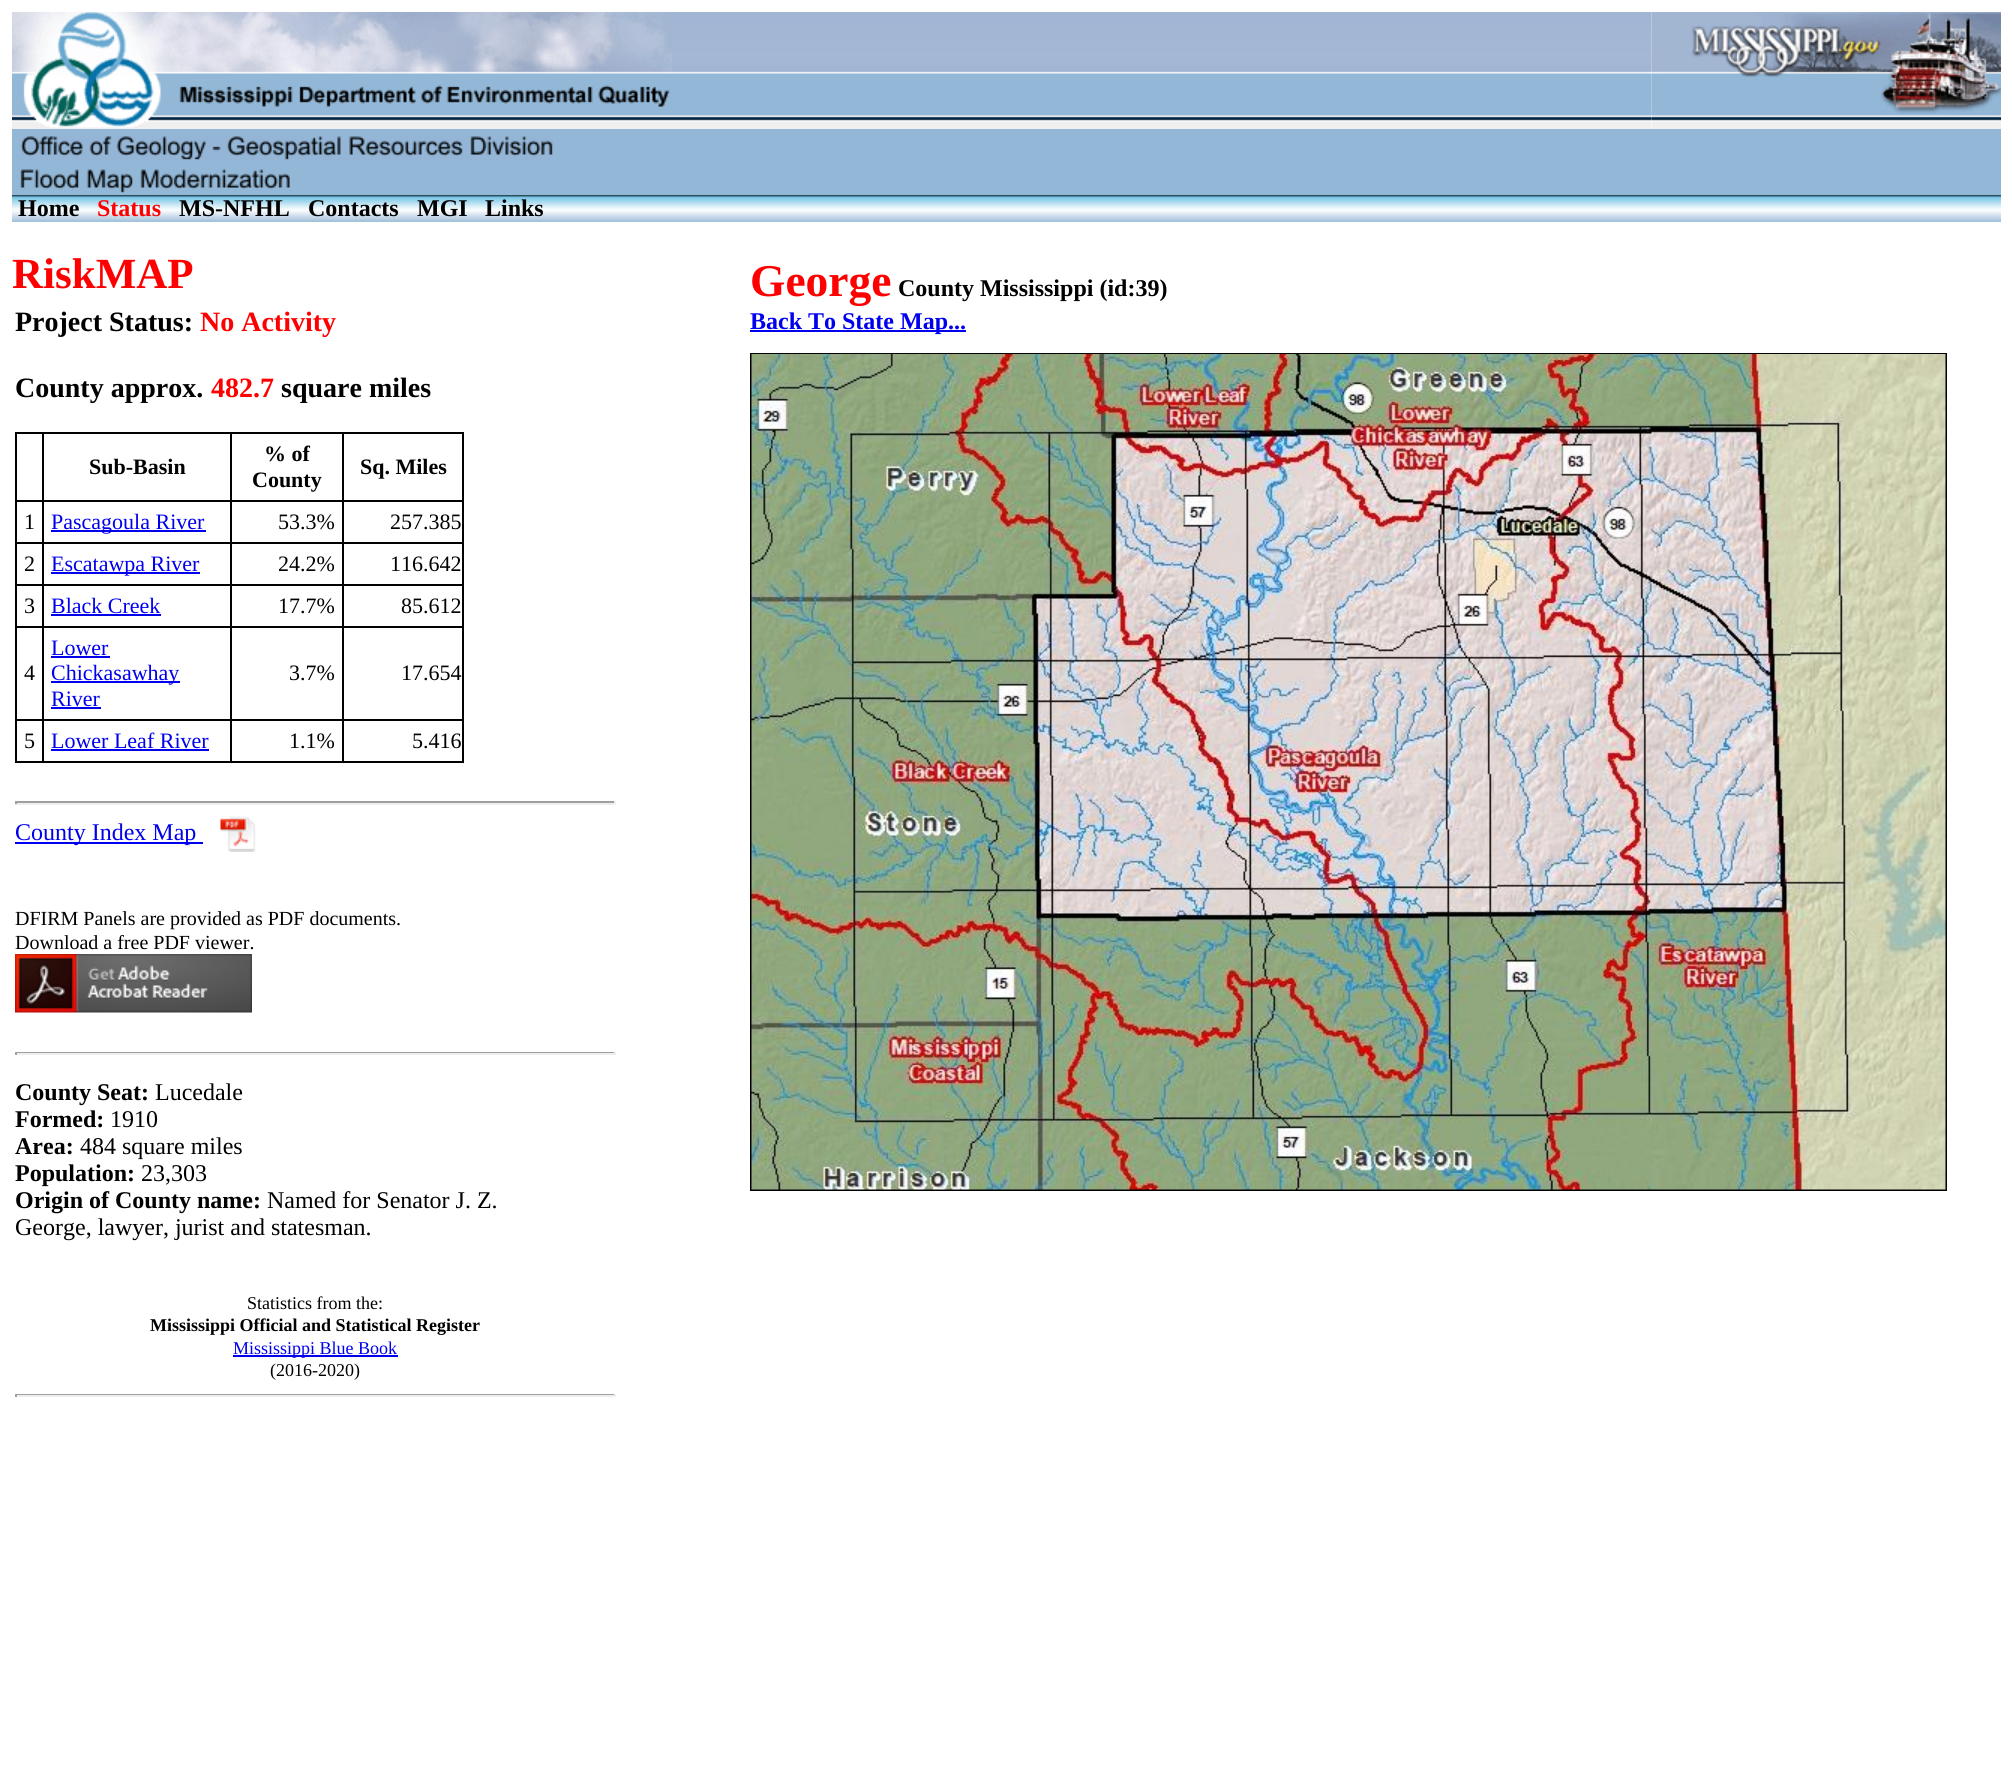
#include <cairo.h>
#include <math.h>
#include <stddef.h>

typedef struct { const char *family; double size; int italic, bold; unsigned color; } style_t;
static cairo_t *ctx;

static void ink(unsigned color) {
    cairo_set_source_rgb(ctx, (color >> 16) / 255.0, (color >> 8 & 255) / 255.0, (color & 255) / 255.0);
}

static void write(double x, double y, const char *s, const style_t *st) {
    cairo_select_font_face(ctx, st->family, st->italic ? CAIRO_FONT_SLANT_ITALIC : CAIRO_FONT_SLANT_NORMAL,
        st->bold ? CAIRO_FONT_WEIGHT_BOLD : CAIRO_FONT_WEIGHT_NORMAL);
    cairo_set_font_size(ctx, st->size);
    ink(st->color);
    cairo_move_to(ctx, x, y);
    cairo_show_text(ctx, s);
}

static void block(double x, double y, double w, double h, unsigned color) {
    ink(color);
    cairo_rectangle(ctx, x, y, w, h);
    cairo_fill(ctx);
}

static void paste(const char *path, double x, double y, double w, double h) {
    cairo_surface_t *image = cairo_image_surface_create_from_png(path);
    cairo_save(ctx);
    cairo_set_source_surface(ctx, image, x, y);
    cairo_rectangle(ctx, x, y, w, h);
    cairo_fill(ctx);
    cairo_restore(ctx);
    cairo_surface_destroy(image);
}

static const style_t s1 = {"Liberation Serif", 24, 0, 1, 0x000000};
static const style_t s2 = {"Liberation Serif", 24, 0, 1, 0xff0000};
static const style_t s3 = {"Liberation Serif", 43, 0, 1, 0xff0000};
static const style_t s4 = {"Liberation Serif", 45.5, 0, 1, 0xff0000};
static const style_t s5 = {"Liberation Serif", 24, 0, 1, 0x0000ee};
static const style_t s6 = {"Liberation Serif", 28, 0, 1, 0x000000};
static const style_t s7 = {"Liberation Serif", 28, 0, 1, 0xff0000};
static const style_t s8 = {"Liberation Serif", 22, 0, 1, 0x000000};
static const style_t s9 = {"Liberation Serif", 22, 0, 0, 0x000000};
static const style_t s10 = {"Liberation Serif", 22, 0, 0, 0x0000ee};
static const style_t s11 = {"Liberation Serif", 24, 0, 0, 0x0000ee};
static const style_t s12 = {"Liberation Serif", 20, 0, 0, 0x000000};
static const style_t s13 = {"Liberation Serif", 24, 0, 0, 0x000000};
static const style_t s14 = {"Liberation Serif", 18, 0, 0, 0x000000};
static const style_t s15 = {"Liberation Serif", 18, 0, 1, 0x000000};
static const style_t s16 = {"Liberation Serif", 18, 0, 0, 0x0000ee};

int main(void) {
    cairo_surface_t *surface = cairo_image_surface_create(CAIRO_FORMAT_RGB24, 2012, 1786);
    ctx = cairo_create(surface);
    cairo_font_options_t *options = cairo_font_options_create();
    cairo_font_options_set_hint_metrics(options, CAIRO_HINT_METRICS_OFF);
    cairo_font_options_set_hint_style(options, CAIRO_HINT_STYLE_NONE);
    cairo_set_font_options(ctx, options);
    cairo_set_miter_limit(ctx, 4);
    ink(0xffffff);
    cairo_paint(ctx);
    block(12, 128, 660, 1, 0xefefef);
    paste("pic1.png", 12, 12, 660, 116);
    paste("pic2.png", 672, 12, 980, 117);
    block(1652, 122, 349, 7, 0xefefef);
    paste("pic3.png", 1651, 12, 350, 110);
    block(12, 129, 1989, 66, 0x93b8d7);
    paste("pic4.png", 20, 136, 533, 24);
    paste("pic5.png", 20, 169, 270, 24);
    paste("pic6.png", 12, 195, 1989, 27);
    write(18, 216, "Home", &s1);
    write(97, 216, "Status", &s2);
    write(179, 216, "MS-NFHL", &s1);
    write(308, 216, "Contacts", &s1);
    write(417, 216, "MGI", &s1);
    write(485, 216, "Links", &s1);
    write(12, 288, "RiskMAP", &s3);
    write(750, 296, "George", &s4);
    write(898, 296, "County Mississippi (id:39)", &s1);
    block(750, 330, 216, 2, 0x0000ee);
    write(750, 329, "Back To State Map...", &s5);
    write(15, 331, "Project Status:", &s6);
    write(200, 331, "No Activity", &s7);
    write(15, 397, "County approx.", &s6);
    write(211, 397, "482.7", &s7);
    write(281, 397, "square miles", &s6);
    block(15, 432, 449, 2, 0x000000);
    block(462, 432, 2, 330, 0x000000);
    block(15, 761, 449, 2, 0x000000);
    block(15, 432, 2, 330, 0x000000);
    block(342, 500, 122, 2, 0x000000);
    block(342, 542, 122, 2, 0x000000);
    block(342, 584, 122, 2, 0x000000);
    block(342, 626, 122, 2, 0x000000);
    block(342, 719, 122, 2, 0x000000);
    block(342, 719, 2, 43, 0x000000);
    block(230, 719, 114, 2, 0x000000);
    block(342, 626, 2, 94, 0x000000);
    block(230, 626, 114, 2, 0x000000);
    block(342, 584, 2, 43, 0x000000);
    block(230, 584, 114, 2, 0x000000);
    block(342, 542, 2, 43, 0x000000);
    block(230, 542, 114, 2, 0x000000);
    block(342, 500, 2, 43, 0x000000);
    block(230, 500, 114, 2, 0x000000);
    block(230, 719, 2, 43, 0x000000);
    block(42, 719, 189, 2, 0x000000);
    block(230, 626, 2, 94, 0x000000);
    block(42, 626, 189, 2, 0x000000);
    block(230, 584, 2, 43, 0x000000);
    block(42, 584, 189, 2, 0x000000);
    block(230, 542, 2, 43, 0x000000);
    block(42, 542, 189, 2, 0x000000);
    block(230, 500, 2, 43, 0x000000);
    block(42, 500, 189, 2, 0x000000);
    block(42, 719, 2, 43, 0x000000);
    block(15, 719, 29, 2, 0x000000);
    block(42, 626, 2, 94, 0x000000);
    block(15, 626, 29, 2, 0x000000);
    block(42, 584, 2, 43, 0x000000);
    block(15, 584, 29, 2, 0x000000);
    block(42, 542, 2, 43, 0x000000);
    block(15, 542, 29, 2, 0x000000);
    block(42, 500, 2, 43, 0x000000);
    block(15, 500, 29, 2, 0x000000);
    block(42, 432, 2, 69, 0x000000);
    write(89, 474, "Sub-Basin", &s8);
    block(230, 432, 2, 69, 0x000000);
    write(264, 461, "% of", &s8);
    write(252, 487, "County", &s8);
    block(342, 432, 2, 69, 0x000000);
    write(360, 474, "Sq. Miles", &s8);
    write(24, 529, "1", &s9);
    block(51, 530, 155, 2, 0x0000ee);
    write(51, 529, "Pascagoula River", &s10);
    write(278, 529, "53.3%", &s9);
    write(390, 529, "257.385", &s9);
    write(24, 571, "2", &s9);
    block(51, 572, 149, 2, 0x0000ee);
    write(51, 571, "Escatawpa River", &s10);
    write(278, 571, "24.2%", &s9);
    write(390, 571, "116.642", &s9);
    write(24, 613, "3", &s9);
    write(51, 613, "Black Creek", &s10);
    block(51, 614, 110, 2, 0x0000ee);
    write(278, 613, "17.7%", &s9);
    write(401, 613, "85.612", &s9);
    write(24, 680, "4", &s9);
    write(51, 655, "Lower", &s10);
    block(51, 656, 59, 2, 0x0000ee);
    block(51, 681, 129, 2, 0x0000ee);
    write(51, 680, "Chickasawhay", &s10);
    write(51, 706, "River", &s10);
    block(51, 707, 50, 2, 0x0000ee);
    write(289, 680, "3.7%", &s9);
    write(401, 680, "17.654", &s9);
    write(24, 748, "5", &s9);
    write(51, 748, "Lower Leaf River", &s10);
    block(51, 749, 158, 2, 0x0000ee);
    write(289, 748, "1.1%", &s9);
    write(412, 748, "5.416", &s9);
    block(15, 801, 600, 2, 0x9f9f9f);
    block(614, 801, 2, 3, 0xeeeeee);
    block(15, 803, 600, 2, 0xeeeeee);
    block(15, 801, 2, 3, 0x9f9f9f);
    block(15, 842, 188, 2, 0x0000ee);
    write(15, 840, "County Index Map", &s11);
    paste("pic7.png", 220, 816, 36, 36);
    write(15, 925, "DFIRM Panels are provided as PDF documents.", &s12);
    write(15, 949, "Download a free PDF viewer.", &s12);
    paste("pic8.png", 15, 954, 237, 59);
    block(15, 1052, 600, 1, 0x9f9f9f);
    block(614, 1052, 2, 3, 0xeeeeee);
    block(15, 1053, 600, 2, 0xeeeeee);
    block(15, 1052, 2, 3, 0x9f9f9f);
    write(15, 1100, "County Seat:", &s1);
    write(155, 1100, "Lucedale", &s13);
    write(15, 1127, "Formed:", &s1);
    write(110, 1127, "1910", &s13);
    write(15, 1154, "Area:", &s1);
    write(80, 1154, "484 square miles", &s13);
    write(15, 1181, "Population:", &s1);
    write(141, 1181, "23,303", &s13);
    write(15, 1208, "Origin of County name:", &s1);
    write(267, 1208, "Named for Senator J. Z.", &s13);
    write(15, 1235, "George, lawyer, jurist and statesman.", &s13);
    write(247, 1309, "Statistics from the:", &s14);
    write(150, 1331, "Mississippi Official and Statistical Register", &s15);
    block(233, 1355, 165, 2, 0x0000ee);
    write(233, 1354, "Mississippi Blue Book", &s16);
    write(270, 1376, "(2016-2020)", &s14);
    block(15, 1394, 600, 1, 0x9f9f9f);
    block(614, 1394, 2, 3, 0xeeeeee);
    block(15, 1395, 600, 2, 0xeeeeee);
    block(15, 1394, 2, 3, 0x9f9f9f);
    cairo_rectangle(ctx, 751, 354, 1195, 836);
    ink(0x000000);
    cairo_stroke(ctx);
    paste("pic9.png", 751, 354, 1195, 836);
    cairo_surface_write_to_png(surface, "screenshot.png");
    cairo_font_options_destroy(options);
    cairo_destroy(ctx);
    cairo_surface_destroy(surface);
    return 0;
}
